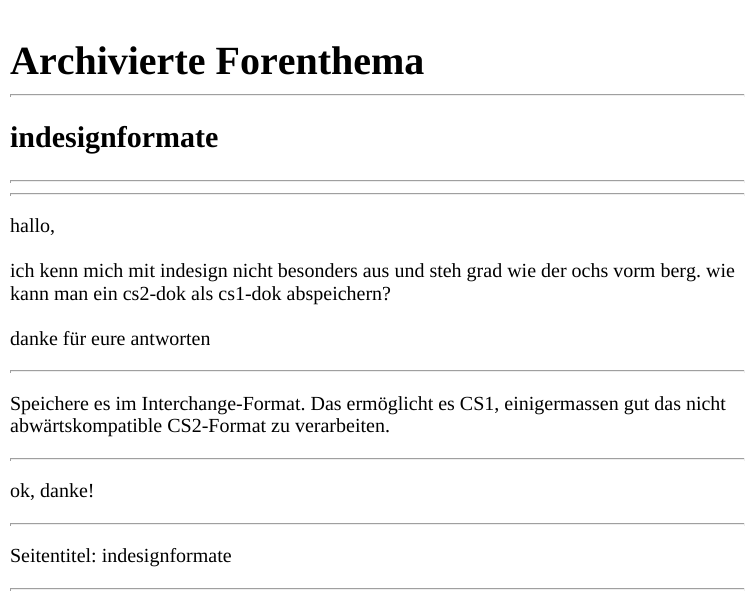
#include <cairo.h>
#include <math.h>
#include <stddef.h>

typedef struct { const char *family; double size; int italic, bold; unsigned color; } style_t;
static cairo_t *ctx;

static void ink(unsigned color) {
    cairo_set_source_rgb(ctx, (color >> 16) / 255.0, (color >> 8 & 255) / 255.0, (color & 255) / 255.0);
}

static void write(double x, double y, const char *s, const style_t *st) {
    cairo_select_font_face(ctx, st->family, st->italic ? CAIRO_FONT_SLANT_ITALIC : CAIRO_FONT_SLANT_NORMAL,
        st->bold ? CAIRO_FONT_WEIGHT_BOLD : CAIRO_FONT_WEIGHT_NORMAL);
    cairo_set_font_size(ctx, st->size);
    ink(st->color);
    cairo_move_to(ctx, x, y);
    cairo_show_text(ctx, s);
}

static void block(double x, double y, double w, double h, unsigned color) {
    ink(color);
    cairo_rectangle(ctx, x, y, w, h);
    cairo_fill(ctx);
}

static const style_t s1 = {"Liberation Serif", 40, 0, 1, 0x000000};
static const style_t s2 = {"Liberation Serif", 30, 0, 1, 0x000000};
static const style_t s3 = {"Liberation Serif", 20, 0, 0, 0x000000};

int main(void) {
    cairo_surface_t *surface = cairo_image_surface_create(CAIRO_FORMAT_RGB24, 755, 591);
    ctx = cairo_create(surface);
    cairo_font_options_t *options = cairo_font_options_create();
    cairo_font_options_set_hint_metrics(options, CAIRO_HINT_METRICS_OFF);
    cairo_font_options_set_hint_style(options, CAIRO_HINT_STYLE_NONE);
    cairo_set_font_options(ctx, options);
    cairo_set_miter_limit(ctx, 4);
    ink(0xffffff);
    cairo_paint(ctx);
    write(10, 74, "Archivierte Forenthema", &s1);
    block(10, 94, 735, 1, 0x9f9f9f);
    block(744, 94, 1, 3, 0xeeeeee);
    block(10, 95, 735, 1, 0xeeeeee);
    block(10, 94, 1, 3, 0x9f9f9f);
    write(10, 147, "indesignformate", &s2);
    block(10, 180, 735, 1, 0x9f9f9f);
    block(744, 180, 1, 3, 0xeeeeee);
    block(10, 181, 735, 1, 0xeeeeee);
    block(10, 180, 1, 3, 0x9f9f9f);
    block(10, 193, 735, 1, 0x9f9f9f);
    block(744, 193, 1, 3, 0xeeeeee);
    block(10, 194, 735, 1, 0xeeeeee);
    block(10, 193, 1, 3, 0x9f9f9f);
    write(10, 232, "hallo,", &s3);
    write(10, 277, "ich kenn mich mit indesign nicht besonders aus und steh grad wie der ochs vorm berg. wie", &s3);
    write(10, 300, "kann man ein cs2-dok als cs1-dok abspeichern?", &s3);
    write(10, 345, "danke für eure antworten", &s3);
    block(10, 370, 735, 1, 0x9f9f9f);
    block(744, 370, 1, 3, 0xeeeeee);
    block(10, 371, 735, 1, 0xeeeeee);
    block(10, 370, 1, 3, 0x9f9f9f);
    write(10, 410, "Speichere es im Interchange-Format. Das ermöglicht es CS1, einigermassen gut das nicht", &s3);
    write(10, 432, "abwärtskompatible CS2-Format zu verarbeiten.", &s3);
    block(10, 458, 735, 1, 0x9f9f9f);
    block(744, 458, 1, 3, 0xeeeeee);
    block(10, 459, 735, 1, 0xeeeeee);
    block(10, 458, 1, 3, 0x9f9f9f);
    write(10, 497, "ok, danke!", &s3);
    block(10, 523, 735, 1, 0x9f9f9f);
    block(744, 523, 1, 3, 0xeeeeee);
    block(10, 524, 735, 1, 0xeeeeee);
    block(10, 523, 1, 3, 0x9f9f9f);
    write(10, 562, "Seitentitel: indesignformate", &s3);
    block(10, 588, 735, 1, 0x9f9f9f);
    block(744, 588, 1, 3, 0xeeeeee);
    block(10, 589, 735, 1, 0xeeeeee);
    block(10, 588, 1, 3, 0x9f9f9f);
    cairo_surface_write_to_png(surface, "screenshot.png");
    cairo_font_options_destroy(options);
    cairo_destroy(ctx);
    cairo_surface_destroy(surface);
    return 0;
}
